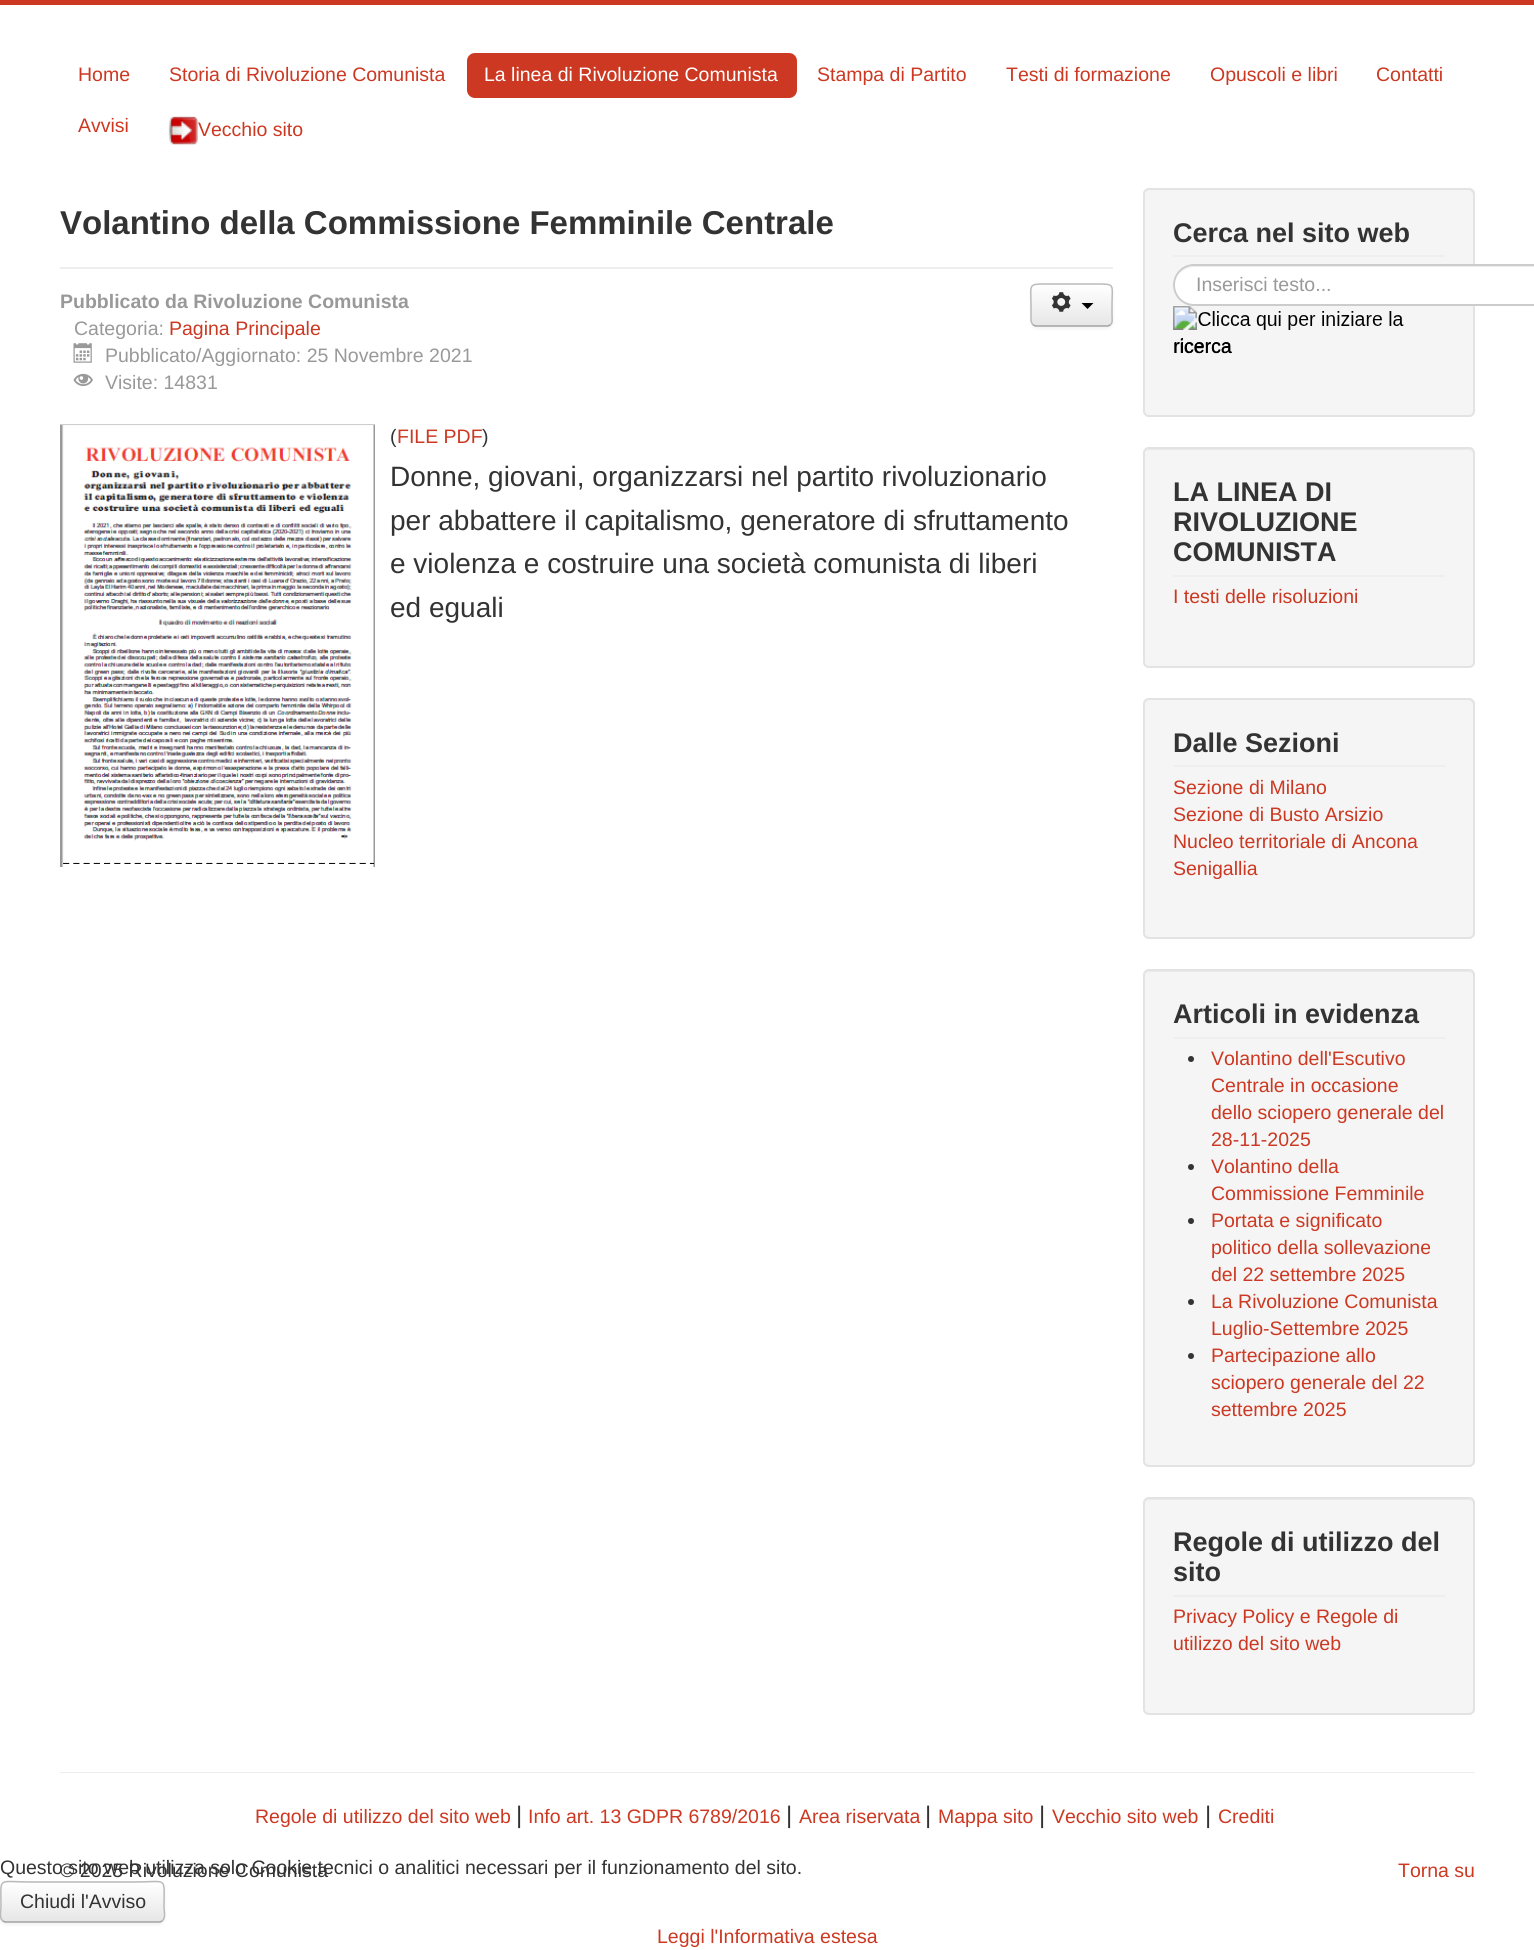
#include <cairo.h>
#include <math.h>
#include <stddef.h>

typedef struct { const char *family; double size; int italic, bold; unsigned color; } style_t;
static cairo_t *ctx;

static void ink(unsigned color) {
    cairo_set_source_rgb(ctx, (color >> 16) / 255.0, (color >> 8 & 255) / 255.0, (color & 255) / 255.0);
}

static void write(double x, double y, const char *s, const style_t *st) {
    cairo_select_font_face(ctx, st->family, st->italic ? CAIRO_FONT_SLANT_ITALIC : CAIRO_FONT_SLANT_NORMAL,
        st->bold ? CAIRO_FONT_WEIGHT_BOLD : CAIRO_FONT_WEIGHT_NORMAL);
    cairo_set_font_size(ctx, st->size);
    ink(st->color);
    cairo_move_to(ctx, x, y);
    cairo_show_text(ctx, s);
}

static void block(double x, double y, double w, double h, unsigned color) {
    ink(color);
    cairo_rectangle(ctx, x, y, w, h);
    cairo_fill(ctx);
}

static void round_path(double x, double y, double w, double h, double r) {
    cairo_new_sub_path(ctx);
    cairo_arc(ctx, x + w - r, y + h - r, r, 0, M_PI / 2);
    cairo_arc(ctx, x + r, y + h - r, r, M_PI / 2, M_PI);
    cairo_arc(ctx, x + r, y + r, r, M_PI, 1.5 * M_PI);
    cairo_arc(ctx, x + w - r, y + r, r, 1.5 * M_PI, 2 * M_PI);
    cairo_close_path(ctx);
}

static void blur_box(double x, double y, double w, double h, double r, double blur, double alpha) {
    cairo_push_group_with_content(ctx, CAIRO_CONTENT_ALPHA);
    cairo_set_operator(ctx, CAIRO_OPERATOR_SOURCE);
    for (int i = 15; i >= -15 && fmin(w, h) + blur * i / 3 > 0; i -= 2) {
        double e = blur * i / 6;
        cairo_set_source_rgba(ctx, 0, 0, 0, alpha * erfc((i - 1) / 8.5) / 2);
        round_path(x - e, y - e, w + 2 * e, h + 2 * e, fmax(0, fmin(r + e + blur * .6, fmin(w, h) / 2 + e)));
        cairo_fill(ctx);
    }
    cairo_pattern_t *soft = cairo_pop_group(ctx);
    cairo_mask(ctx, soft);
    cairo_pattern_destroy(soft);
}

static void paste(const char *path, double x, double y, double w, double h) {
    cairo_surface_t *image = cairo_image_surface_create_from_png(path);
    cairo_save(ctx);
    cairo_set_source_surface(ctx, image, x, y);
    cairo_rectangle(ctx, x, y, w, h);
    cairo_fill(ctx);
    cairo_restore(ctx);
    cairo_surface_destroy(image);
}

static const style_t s1 = {"Liberation Sans", 19.5, 0, 0, 0xcc3821};
static const style_t s2 = {"Liberation Sans", 19.5, 0, 0, 0xffffff};
static const style_t s3 = {"Liberation Sans", 33, 0, 1, 0x333333};
static const style_t s4 = {"Liberation Sans", 19.5, 0, 1, 0x999999};
static const style_t s5 = {"Liberation Sans", 19.5, 0, 0, 0x999999};
static const style_t s6 = {"Liberation Sans", 19.5, 0, 0, 0x333333};
static const style_t s7 = {"Liberation Sans", 28, 0, 0, 0x333333};
static const style_t s8 = {"Liberation Sans", 27, 0, 1, 0x333333};
static const style_t s9 = {"Liberation Sans", 19.5, 0, 0, 0x000000};
static const style_t s10 = {"Liberation Sans", 24, 0, 0, 0x333333};

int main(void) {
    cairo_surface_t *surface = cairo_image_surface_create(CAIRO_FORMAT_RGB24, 1534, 1950);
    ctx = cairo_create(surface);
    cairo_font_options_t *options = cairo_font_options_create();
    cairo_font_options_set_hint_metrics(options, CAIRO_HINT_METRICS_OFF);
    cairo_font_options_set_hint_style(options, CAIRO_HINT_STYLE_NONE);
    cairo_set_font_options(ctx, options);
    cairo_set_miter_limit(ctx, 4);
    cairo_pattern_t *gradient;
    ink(0xffffff);
    cairo_paint(ctx);
    block(0, 0, 1534, 5, 0xcc3821);
    write(78, 81, "Home", &s1);
    write(169, 81, "Storia di Rivoluzione Comunista", &s1);
    round_path(467, 53, 330, 45, 8);
    cairo_fill(ctx);
    write(484, 81, "La linea di Rivoluzione Comunista", &s2);
    write(817, 81, "Stampa di Partito", &s1);
    write(1006, 81, "Testi di formazione", &s1);
    write(1210, 81, "Opuscoli e libri", &s1);
    write(1376, 81, "Contatti", &s1);
    write(78, 132, "Avvisi", &s1);
    paste("pic1.png", 168, 116, 30, 29);
    write(198, 136, "Vecchio sito", &s1);
    block(60, 267, 1053, 2, 0xeeeeee);
    write(60, 234, "Volantino della Commissione Femminile Centrale", &s3);
    write(60, 308, "Pubblicato da Rivoluzione Comunista", &s4);
    write(74, 335, "Categoria:", &s5);
    write(169, 335, "Pagina Principale", &s1);
    paste("pic2.png", 73, 343, 19, 20);
    write(105, 362, "Pubblicato/Aggiornato: 25 Novembre 2021", &s5);
    paste("pic3.png", 73, 373, 20, 14);
    write(105, 389, "Visite: 14831", &s5);
    ink(0x000000);
    blur_box(1031, 285, 82, 44, 6, 1.5, 0.05);
    ink(0xf5f5f5);
    round_path(1031, 284, 82, 43, 6);
    cairo_fill(ctx);
    cairo_save(ctx);
    round_path(1031, 284, 82, 43, 6);
    cairo_clip(ctx);
    gradient = cairo_pattern_create_linear(1072, 285, 1072, 326);
    cairo_pattern_add_color_stop_rgba(gradient, 0, 1, 1, 1, 1);
    cairo_pattern_add_color_stop_rgba(gradient, 1, 0.902, 0.902, 0.902, 1);
    cairo_set_source(ctx, gradient);
    cairo_pattern_destroy(gradient);
    cairo_rectangle(ctx, 1031, 285, 82, 41);
    cairo_fill(ctx);
    cairo_restore(ctx);
    ink(0xffffff);
    cairo_new_path(ctx);
    cairo_move_to(ctx, 1036, 286);
    cairo_line_to(ctx, 1107, 286);
    cairo_curve_to(ctx, 1109, 286, 1112, 289, 1112, 291);
    cairo_curve_to(ctx, 1112, 282, 1101, 285, 1095, 285);
    cairo_line_to(ctx, 1049, 285);
    cairo_curve_to(ctx, 1043, 285, 1032, 282, 1032, 291);
    cairo_curve_to(ctx, 1032, 289, 1034, 286, 1036, 286);
    cairo_close_path(ctx);
    cairo_fill(ctx);
    cairo_new_path(ctx);
    cairo_move_to(ctx, 1110.5, 324.5);
    cairo_curve_to(ctx, 1109.5, 325.5, 1108.5, 326, 1107, 326);
    cairo_line_to(ctx, 1036.5, 326);
    cairo_curve_to(ctx, 1035, 326, 1034, 325.5, 1033, 324.5);
    ink(0xa2a2a2);
    cairo_set_line_width(ctx, 1.5);
    cairo_stroke(ctx);
    cairo_new_path(ctx);
    cairo_move_to(ctx, 1033, 324.5);
    cairo_curve_to(ctx, 1030.5, 322.5, 1031, 318.5, 1031, 316);
    cairo_line_to(ctx, 1031, 305);
    cairo_curve_to(ctx, 1031, 283.5, 1027.5, 284, 1048, 284);
    cairo_line_to(ctx, 1095, 284);
    cairo_curve_to(ctx, 1116, 284, 1112, 283.5, 1112, 305);
    cairo_line_to(ctx, 1112, 316);
    cairo_curve_to(ctx, 1112, 318.5, 1113, 322.5, 1110.5, 324.5);
    ink(0xbbbbbb);
    cairo_stroke(ctx);
    paste("pic4.png", 1051, 292, 20, 20);
    ink(0x000000);
    cairo_new_path(ctx);
    cairo_move_to(ctx, 1081.5, 303);
    cairo_line_to(ctx, 1093.5, 303);
    cairo_line_to(ctx, 1087.5, 309);
    cairo_close_path(ctx);
    cairo_fill(ctx);
    paste("pic5.png", 60, 424, 315, 443);
    write(390, 443, "(", &s6);
    write(397, 443, "FILE PDF", &s1);
    write(482, 443, ")", &s6);
    write(390, 486, "Donne, giovani, organizzarsi nel partito rivoluzionario", &s7);
    write(390, 530, "per abbattere il capitalismo, generatore di sfruttamento", &s7);
    write(390, 573, "e violenza e costruire una società comunista di liberi", &s7);
    write(390, 617, "ed eguali", &s7);
    ink(0xf5f5f5);
    round_path(1143, 188, 332, 229, 6);
    cairo_fill(ctx);
    ink(0xe9e9e9);
    cairo_new_path(ctx);
    cairo_move_to(ctx, 1149, 190);
    cairo_line_to(ctx, 1468, 190);
    cairo_curve_to(ctx, 1471, 190, 1473, 193, 1473, 195);
    cairo_line_to(ctx, 1473, 194);
    cairo_curve_to(ctx, 1473, 191, 1471, 189, 1468, 189);
    cairo_line_to(ctx, 1150, 189);
    cairo_curve_to(ctx, 1148, 189, 1146, 190, 1145, 192);
    cairo_curve_to(ctx, 1146, 191, 1148, 190, 1149, 190);
    cairo_close_path(ctx);
    cairo_fill(ctx);
    round_path(1144, 189, 330, 227, 5);
    ink(0xe3e3e3);
    cairo_set_line_width(ctx, 2);
    cairo_stroke(ctx);
    block(1173, 255, 272, 2, 0xeeeeee);
    write(1173, 242, "Cerca nel sito web", &s8);
    ink(0xffffff);
    round_path(1173, 264, 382, 42, 21);
    cairo_fill(ctx);
    ink(0xececec);
    cairo_new_path(ctx);
    cairo_move_to(ctx, 1194, 267);
    cairo_line_to(ctx, 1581, 267);
    cairo_curve_to(ctx, 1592, 267, 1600, 276, 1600, 286);
    cairo_curve_to(ctx, 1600, 291, 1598, 295, 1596, 299);
    cairo_curve_to(ctx, 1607, 287, 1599, 266, 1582, 266);
    cairo_line_to(ctx, 1192, 266);
    cairo_curve_to(ctx, 1187, 267, 1182, 269, 1179, 274);
    cairo_curve_to(ctx, 1183, 270, 1188, 267, 1194, 267);
    cairo_close_path(ctx);
    cairo_fill(ctx);
    round_path(1174, 265, 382, 40, 20);
    ink(0xcccccc);
    cairo_stroke(ctx);
    write(1196, 291, "Inserisci testo...", &s5);
    paste("pic6.png", 1173, 306, 231, 47);
    write(1173, 353, "ricerca", &s9);
    ink(0xf5f5f5);
    round_path(1143, 447, 332, 221, 6);
    cairo_fill(ctx);
    ink(0xe9e9e9);
    cairo_new_path(ctx);
    cairo_move_to(ctx, 1149, 450);
    cairo_line_to(ctx, 1468, 450);
    cairo_curve_to(ctx, 1471, 450, 1473, 452, 1473, 454);
    cairo_curve_to(ctx, 1473, 451, 1471, 449, 1468, 449);
    cairo_line_to(ctx, 1150, 449);
    cairo_curve_to(ctx, 1148, 449, 1147, 450, 1146, 451);
    cairo_close_path(ctx);
    cairo_fill(ctx);
    round_path(1144, 448, 330, 219, 5);
    ink(0xe3e3e3);
    cairo_stroke(ctx);
    block(1173, 575, 272, 2, 0xeeeeee);
    write(1173, 501, "LA LINEA DI", &s8);
    write(1173, 531, "RIVOLUZIONE", &s8);
    write(1173, 561, "COMUNISTA", &s8);
    write(1173, 603, "I testi delle risoluzioni", &s1);
    ink(0xf5f5f5);
    round_path(1143, 698, 332, 241, 6);
    cairo_fill(ctx);
    ink(0xe9e9e9);
    cairo_new_path(ctx);
    cairo_move_to(ctx, 1149, 700);
    cairo_line_to(ctx, 1468, 700);
    cairo_curve_to(ctx, 1471, 700, 1473, 703, 1473, 705);
    cairo_line_to(ctx, 1473, 704);
    cairo_curve_to(ctx, 1473, 701, 1471, 699, 1468, 699);
    cairo_line_to(ctx, 1150, 699);
    cairo_curve_to(ctx, 1148, 699, 1146, 700, 1145, 702);
    cairo_curve_to(ctx, 1146, 701, 1148, 700, 1149, 700);
    cairo_close_path(ctx);
    cairo_fill(ctx);
    round_path(1144, 699, 330, 239, 5);
    ink(0xe3e3e3);
    cairo_stroke(ctx);
    block(1173, 765, 272, 2, 0xeeeeee);
    write(1173, 752, "Dalle Sezioni", &s8);
    write(1173, 794, "Sezione di Milano", &s1);
    write(1173, 821, "Sezione di Busto Arsizio", &s1);
    write(1173, 848, "Nucleo territoriale di Ancona", &s1);
    write(1173, 875, "Senigallia", &s1);
    ink(0xf5f5f5);
    round_path(1143, 969, 332, 498, 6);
    cairo_fill(ctx);
    ink(0xe9e9e9);
    cairo_new_path(ctx);
    cairo_move_to(ctx, 1149, 972);
    cairo_line_to(ctx, 1468, 972);
    cairo_curve_to(ctx, 1471, 972, 1473, 974, 1473, 976);
    cairo_curve_to(ctx, 1473, 973, 1471, 971, 1468, 971);
    cairo_line_to(ctx, 1150, 971);
    cairo_curve_to(ctx, 1148, 971, 1147, 972, 1146, 973);
    cairo_close_path(ctx);
    cairo_fill(ctx);
    round_path(1144, 970, 330, 496, 5);
    ink(0xe3e3e3);
    cairo_stroke(ctx);
    block(1173, 1037, 272, 2, 0xeeeeee);
    write(1173, 1023, "Articoli in evidenza", &s8);
    cairo_new_path(ctx);
    cairo_arc(ctx, 1191, 1059, 3, 0, 2 * M_PI);
    cairo_fill(ctx);
    write(1211, 1065, "Volantino dell'Escutivo", &s1);
    write(1211, 1092, "Centrale in occasione", &s1);
    write(1211, 1119, "dello sciopero generale del", &s1);
    write(1211, 1146, "28-11-2025", &s1);
    ink(0x333333);
    cairo_new_path(ctx);
    cairo_arc(ctx, 1191, 1167, 3, 0, 2 * M_PI);
    cairo_fill(ctx);
    write(1211, 1173, "Volantino della", &s1);
    write(1211, 1200, "Commissione Femminile", &s1);
    ink(0x333333);
    cairo_new_path(ctx);
    cairo_arc(ctx, 1191, 1221, 3, 0, 2 * M_PI);
    cairo_fill(ctx);
    write(1211, 1227, "Portata e significato", &s1);
    write(1211, 1254, "politico della sollevazione", &s1);
    write(1211, 1281, "del 22 settembre 2025", &s1);
    ink(0x333333);
    cairo_new_path(ctx);
    cairo_arc(ctx, 1191, 1302, 3, 0, 2 * M_PI);
    cairo_fill(ctx);
    write(1211, 1308, "La Rivoluzione Comunista", &s1);
    write(1211, 1335, "Luglio-Settembre 2025", &s1);
    ink(0x333333);
    cairo_new_path(ctx);
    cairo_arc(ctx, 1191, 1356, 3, 0, 2 * M_PI);
    cairo_fill(ctx);
    write(1211, 1362, "Partecipazione allo", &s1);
    write(1211, 1389, "sciopero generale del 22", &s1);
    write(1211, 1416, "settembre 2025", &s1);
    ink(0xf5f5f5);
    round_path(1143, 1497, 332, 218, 6);
    cairo_fill(ctx);
    ink(0xe9e9e9);
    cairo_new_path(ctx);
    cairo_move_to(ctx, 1149, 1500);
    cairo_line_to(ctx, 1468, 1500);
    cairo_curve_to(ctx, 1471, 1500, 1473, 1502, 1473, 1504);
    cairo_curve_to(ctx, 1473, 1501, 1471, 1499, 1468, 1499);
    cairo_line_to(ctx, 1150, 1499);
    cairo_curve_to(ctx, 1148, 1499, 1147, 1500, 1146, 1501);
    cairo_close_path(ctx);
    cairo_fill(ctx);
    round_path(1144, 1498, 330, 216, 5);
    ink(0xe3e3e3);
    cairo_stroke(ctx);
    block(1173, 1595, 272, 2, 0xeeeeee);
    write(1173, 1551, "Regole di utilizzo del", &s8);
    write(1173, 1581, "sito", &s8);
    write(1173, 1623, "Privacy Policy e Regole di", &s1);
    write(1173, 1650, "utilizzo del sito web", &s1);
    block(60, 1772, 1415, 1, 0xeeeeee);
    write(255, 1823, "Regole di utilizzo del sito web", &s1);
    write(516, 1823, "|", &s10);
    write(528, 1823, "Info art. 13 GDPR 6789/2016", &s1);
    write(786, 1823, "|", &s10);
    write(799, 1823, "Area riservata", &s1);
    write(925, 1823, "|", &s10);
    write(938, 1823, "Mappa sito", &s1);
    write(1039, 1823, "|", &s10);
    write(1052, 1823, "Vecchio sito web", &s1);
    write(1205, 1823, "|", &s10);
    write(1218, 1823, "Crediti", &s1);
    write(60, 1877, "© 2025 Rivoluzione Comunista", &s6);
    write(1398, 1877, "Torna su", &s1);
    write(0, 1874, "Questo sito web utilizza solo Cookie tecnici o analitici necessari per il funzionamento del sito.", &s6);
    ink(0x000000);
    blur_box(0, 1883, 165, 42, 6, 1.5, 0.05);
    ink(0xf5f5f5);
    round_path(0, 1881, 165, 42, 6);
    cairo_fill(ctx);
    cairo_save(ctx);
    round_path(0, 1881, 165, 42, 6);
    cairo_clip(ctx);
    gradient = cairo_pattern_create_linear(83, 1883, 83, 1922);
    cairo_pattern_add_color_stop_rgba(gradient, 0, 1, 1, 1, 1);
    cairo_pattern_add_color_stop_rgba(gradient, 1, 0.902, 0.902, 0.902, 1);
    cairo_set_source(ctx, gradient);
    cairo_pattern_destroy(gradient);
    cairo_rectangle(ctx, 0, 1883, 165, 39);
    cairo_fill(ctx);
    cairo_restore(ctx);
    cairo_new_path(ctx);
    cairo_move_to(ctx, 162.5, 1920.5);
    cairo_curve_to(ctx, 161.5, 1921.5, 160.5, 1922, 159, 1922);
    cairo_line_to(ctx, 6, 1922);
    cairo_curve_to(ctx, 4.5, 1922, 3.5, 1921.5, 2.5, 1920.5);
    ink(0xa2a2a2);
    cairo_set_line_width(ctx, 1.5);
    cairo_stroke(ctx);
    cairo_new_path(ctx);
    cairo_move_to(ctx, 2.5, 1920.5);
    cairo_curve_to(ctx, -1, 1917.5, 1, 1910.5, 1, 1907);
    cairo_curve_to(ctx, 1, 1875.5, -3.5, 1882, 31.5, 1882);
    cairo_line_to(ctx, 133.5, 1882);
    cairo_curve_to(ctx, 168.5, 1882, 164, 1875.5, 164, 1907);
    cairo_curve_to(ctx, 164, 1910.5, 166, 1917.5, 162.5, 1920.5);
    ink(0xbbbbbb);
    cairo_stroke(ctx);
    write(20, 1908, "Chiudi l'Avviso", &s6);
    write(657, 1943, "Leggi l'Informativa estesa", &s1);
    cairo_surface_write_to_png(surface, "screenshot.png");
    cairo_font_options_destroy(options);
    cairo_destroy(ctx);
    cairo_surface_destroy(surface);
    return 0;
}
